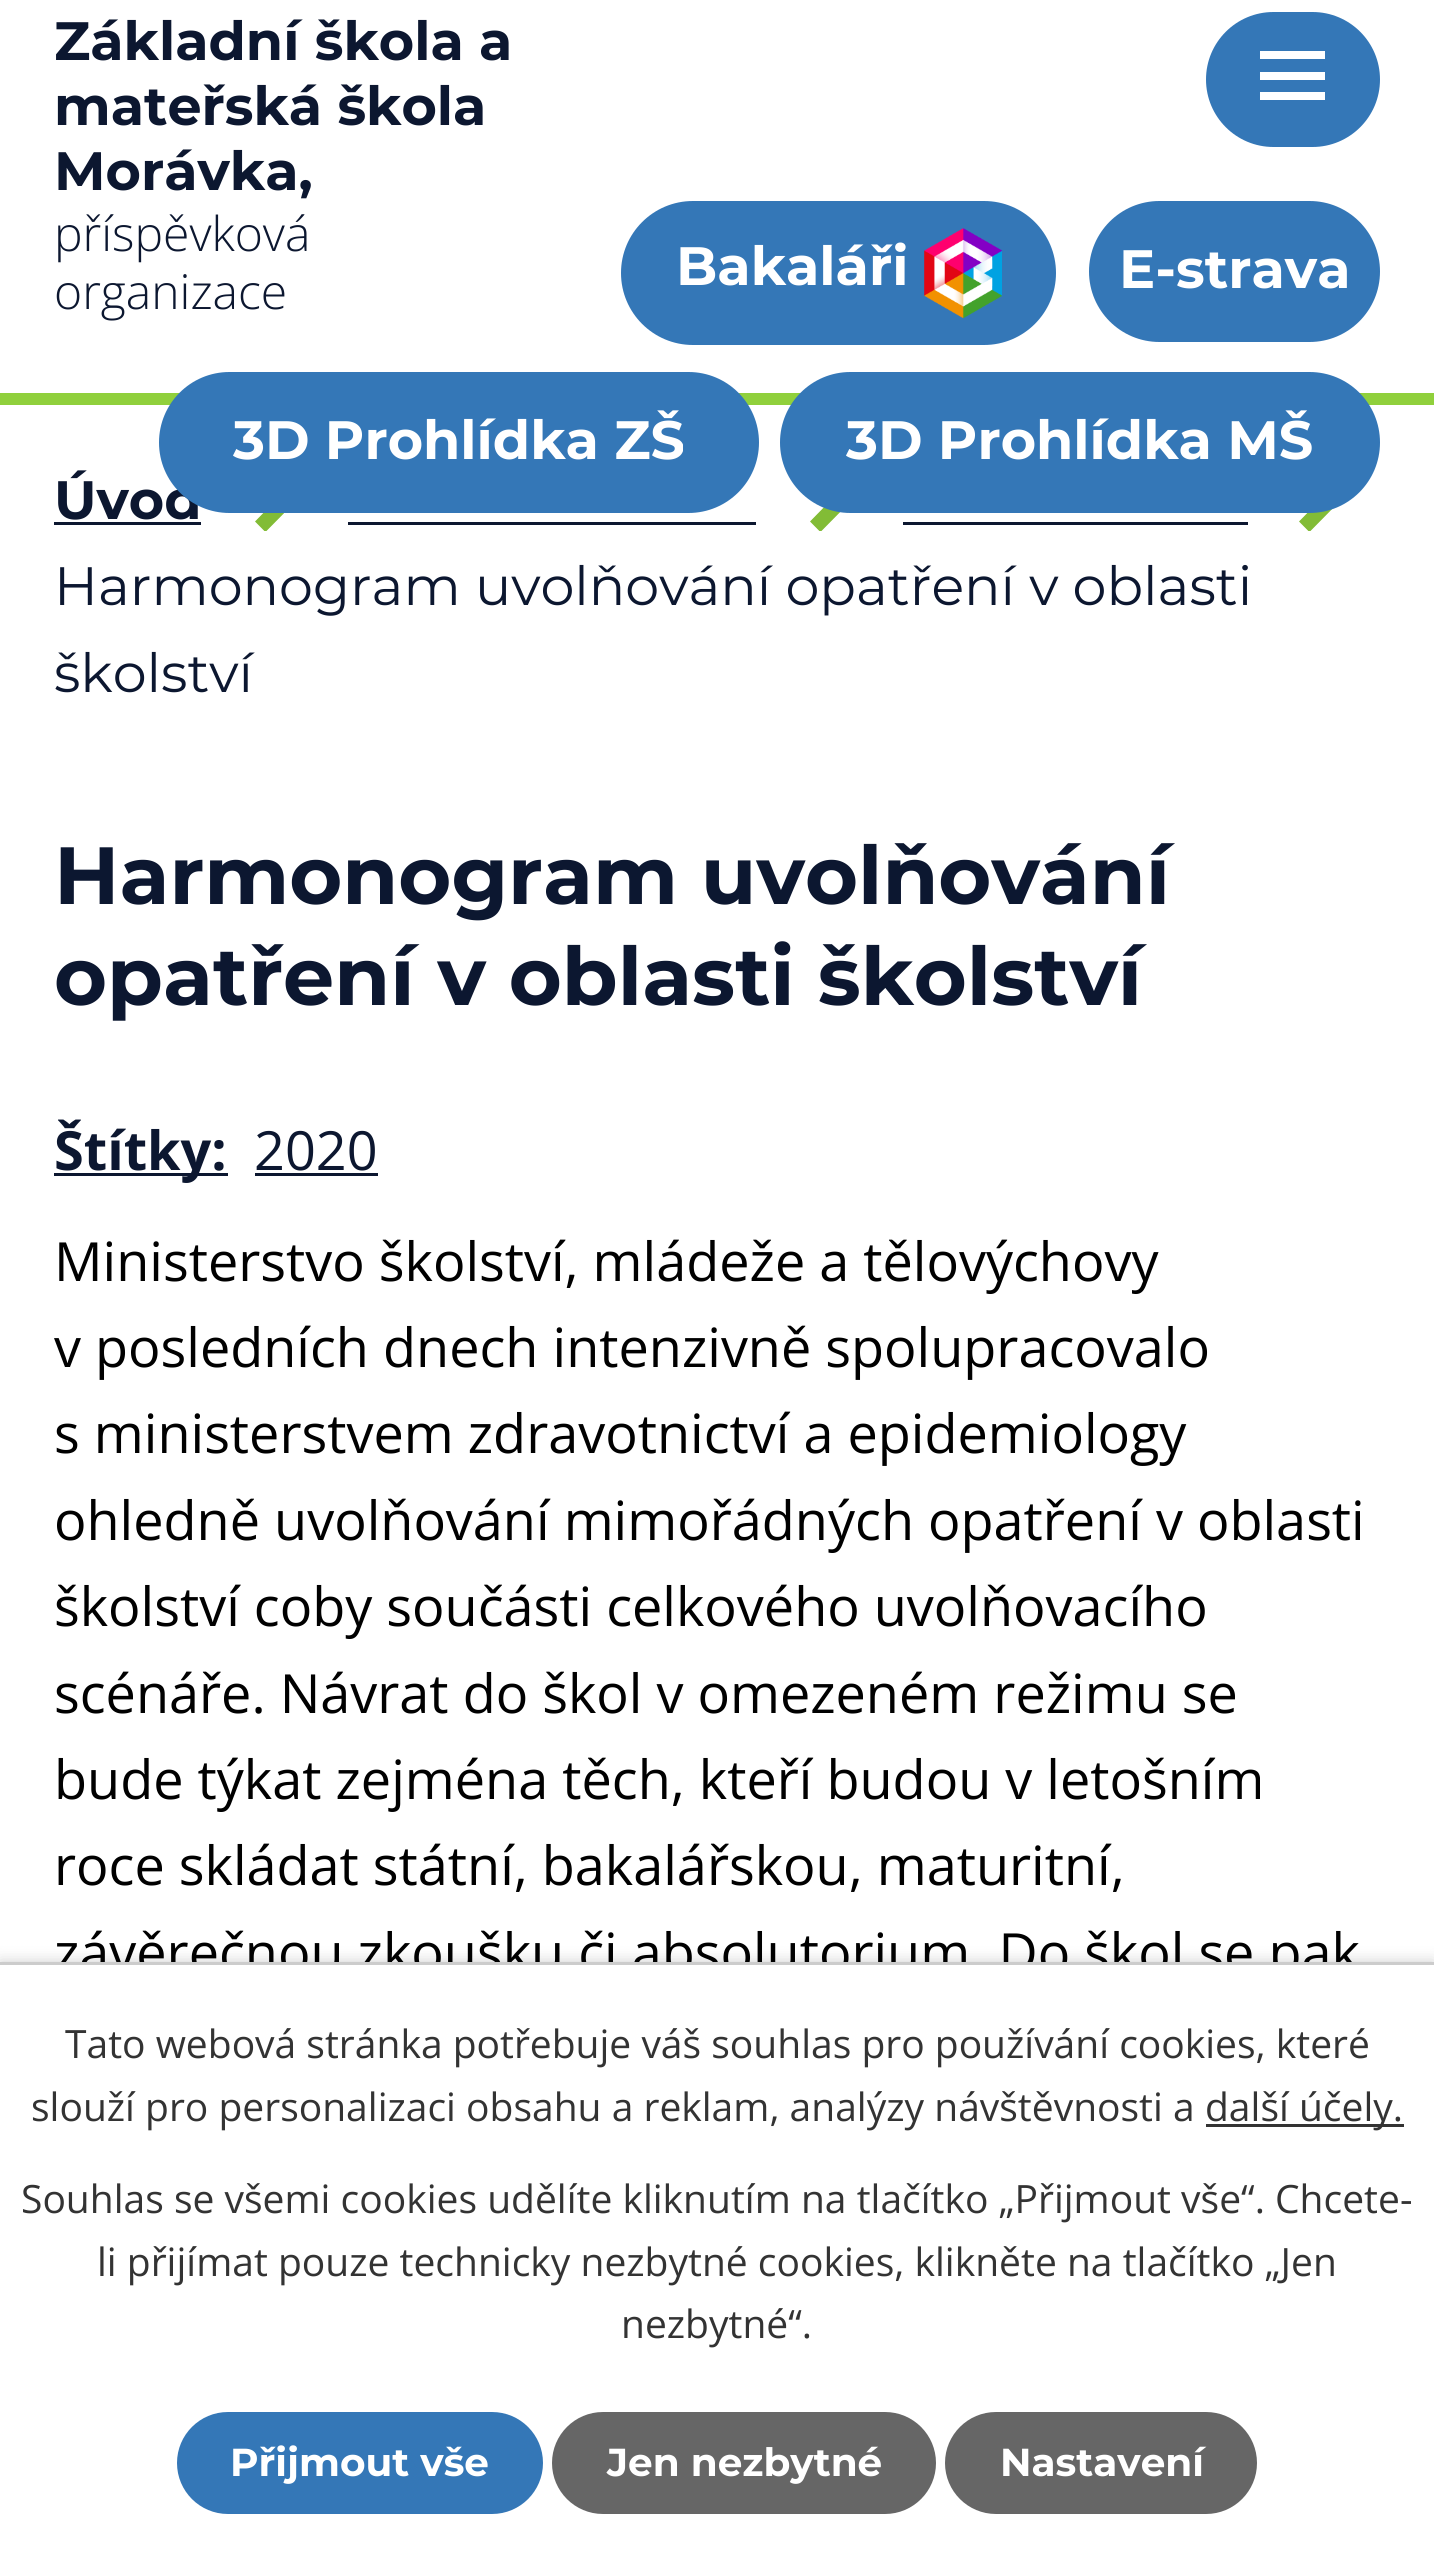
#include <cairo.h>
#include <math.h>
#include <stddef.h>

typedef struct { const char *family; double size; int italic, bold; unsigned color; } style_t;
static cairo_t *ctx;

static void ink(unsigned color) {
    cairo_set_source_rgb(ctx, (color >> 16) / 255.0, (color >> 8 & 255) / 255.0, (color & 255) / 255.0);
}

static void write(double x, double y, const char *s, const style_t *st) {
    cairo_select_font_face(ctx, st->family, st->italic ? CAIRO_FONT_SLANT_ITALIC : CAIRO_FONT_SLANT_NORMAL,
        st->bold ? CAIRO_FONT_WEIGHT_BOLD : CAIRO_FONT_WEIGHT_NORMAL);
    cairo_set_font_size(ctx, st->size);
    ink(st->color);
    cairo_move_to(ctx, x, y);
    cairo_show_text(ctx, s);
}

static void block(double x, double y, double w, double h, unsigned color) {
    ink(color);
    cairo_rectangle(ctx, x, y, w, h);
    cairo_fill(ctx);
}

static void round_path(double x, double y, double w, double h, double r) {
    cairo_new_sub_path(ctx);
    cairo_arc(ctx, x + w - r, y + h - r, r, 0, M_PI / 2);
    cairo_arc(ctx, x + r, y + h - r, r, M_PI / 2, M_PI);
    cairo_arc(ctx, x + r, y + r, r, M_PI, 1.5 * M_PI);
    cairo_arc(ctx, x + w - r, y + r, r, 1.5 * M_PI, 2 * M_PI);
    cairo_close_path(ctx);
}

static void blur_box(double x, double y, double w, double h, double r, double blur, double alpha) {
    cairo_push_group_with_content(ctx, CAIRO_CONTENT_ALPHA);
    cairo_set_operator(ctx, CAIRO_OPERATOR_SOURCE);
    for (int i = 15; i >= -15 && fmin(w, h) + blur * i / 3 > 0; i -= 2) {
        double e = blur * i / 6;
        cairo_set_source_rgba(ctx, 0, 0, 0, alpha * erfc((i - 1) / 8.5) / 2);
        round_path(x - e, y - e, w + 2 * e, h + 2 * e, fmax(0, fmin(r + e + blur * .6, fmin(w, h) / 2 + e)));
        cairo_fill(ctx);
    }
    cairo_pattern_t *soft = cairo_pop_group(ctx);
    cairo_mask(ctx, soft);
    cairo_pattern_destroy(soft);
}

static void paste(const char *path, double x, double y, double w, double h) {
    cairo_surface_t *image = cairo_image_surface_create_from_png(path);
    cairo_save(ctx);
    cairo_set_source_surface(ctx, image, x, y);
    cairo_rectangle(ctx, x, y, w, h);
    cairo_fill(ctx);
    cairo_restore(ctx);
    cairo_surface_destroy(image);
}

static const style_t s1 = {"Montserrat", 54, 0, 1, 0x0c1730};
static const style_t s2 = {"Open Sans Light", 48, 0, 0, 0x0c1730};
static const style_t s3 = {"Montserrat", 54, 0, 1, 0xffffff};
static const style_t s4 = {"Montserrat", 54, 0, 0, 0x0c1730};
static const style_t s5 = {"Montserrat", 81, 0, 1, 0x0c1730};
static const style_t s6 = {"Open Sans", 54, 0, 1, 0x0c1730};
static const style_t s7 = {"Open Sans", 54, 0, 0, 0x0c1730};
static const style_t s8 = {"Open Sans", 54, 0, 0, 0x000000};
static const style_t s9 = {"Open Sans", 39, 0, 0, 0x333333};
static const style_t s10 = {"Montserrat", 39, 0, 1, 0xffffff};

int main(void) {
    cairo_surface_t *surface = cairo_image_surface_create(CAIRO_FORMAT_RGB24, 1434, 2557);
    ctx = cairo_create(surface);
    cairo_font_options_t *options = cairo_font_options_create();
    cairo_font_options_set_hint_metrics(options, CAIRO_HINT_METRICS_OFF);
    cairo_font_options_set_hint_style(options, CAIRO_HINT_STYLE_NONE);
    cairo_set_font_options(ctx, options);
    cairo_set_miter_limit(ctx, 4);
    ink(0xffffff);
    cairo_paint(ctx);
    ink(0x3477b7);
    round_path(1206, 12, 174, 135, 67.5);
    cairo_fill(ctx);
    ink(0xffffff);
    cairo_new_path(ctx);
    cairo_move_to(ctx, 1260, 100);
    cairo_line_to(ctx, 1260, 92);
    cairo_line_to(ctx, 1325, 92);
    cairo_line_to(ctx, 1325, 100);
    cairo_close_path(ctx);
    cairo_move_to(ctx, 1260, 51);
    cairo_line_to(ctx, 1325, 51);
    cairo_line_to(ctx, 1325, 59);
    cairo_line_to(ctx, 1260, 59);
    cairo_close_path(ctx);
    cairo_move_to(ctx, 1260, 80);
    cairo_line_to(ctx, 1260, 72);
    cairo_line_to(ctx, 1325, 72);
    cairo_line_to(ctx, 1325, 80);
    cairo_close_path(ctx);
    cairo_fill(ctx);
    block(0, 393, 1434, 12, 0x90d03c);
    write(54, 60, "Základní škola a", &s1);
    write(54, 125, "mateřská škola", &s1);
    write(54, 190, "Morávka,", &s1);
    write(54, 251, "příspěvková", &s2);
    write(54, 309, "organizace", &s2);
    ink(0x3477b7);
    round_path(621, 201, 435, 144, 72);
    cairo_fill(ctx);
    write(676, 285, "Bakaláři", &s3);
    paste("pic1.png", 924, 228, 78, 90);
    ink(0x3477b7);
    round_path(1089, 201, 291, 141, 70.5);
    cairo_fill(ctx);
    write(1119, 288, "E-strava", &s3);
    write(54, 519, "Úvod", &s1);
    ink(0x3477b7);
    round_path(159, 372, 600, 141, 70.5);
    cairo_fill(ctx);
    write(233, 459, "3D Prohlídka ZŠ", &s3);
    paste("pic3.png", 810, 507, 30, 24);
    paste("pic4.png", 1299, 509, 33, 22);
    ink(0x3477b7);
    round_path(780, 372, 600, 141, 70.5);
    cairo_fill(ctx);
    write(846, 459, "3D Prohlídka MŠ", &s3);
    block(54, 522, 147, 3, 0x0c1730);
    paste("pic2.png", 255, 513, 29, 18);
    block(348, 522, 408, 3, 0x0c1730);
    block(903, 522, 345, 3, 0x0c1730);
    write(54, 605, "Harmonogram uvolňování opatření v oblasti", &s4);
    write(54, 692, "školství", &s4);
    write(54, 904, "Harmonogram uvolňování", &s5);
    write(54, 1005, "opatření v oblasti školství", &s5);
    block(54, 1173, 174, 3, 0x0c1730);
    write(54, 1170, "Štítky:", &s6);
    write(254, 1170, "2020", &s7);
    block(255, 1173, 123, 3, 0x0c1730);
    write(54, 1281, "Ministerstvo školství, mládeže a tělovýchovy", &s8);
    write(54, 1367, "v posledních dnech intenzivně spolupracovalo", &s8);
    write(54, 1453, "s ministerstvem zdravotnictví a epidemiology", &s8);
    write(54, 1540, "ohledně uvolňování mimořádných opatření v oblasti", &s8);
    write(54, 1626, "školství coby součásti celkového uvolňovacího", &s8);
    write(54, 1713, "scénáře. Návrat do škol v omezeném režimu se", &s8);
    write(54, 1799, "bude týkat zejména těch, kteří budou v letošním", &s8);
    write(54, 1885, "roce skládat státní, bakalářskou, maturitní,", &s8);
    write(54, 1972, "závěrečnou zkoušku či absolutorium. Do škol se pak", &s8);
    ink(0x000000);
    blur_box(0, 1962, 1434, 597, 0, 7.5, 0.2);
    block(0, 1965, 1434, 592, 0xffffff);
    block(0, 1962, 1434, 3, 0xcccccc);
    write(65, 2058, "Tato webová stránka potřebuje váš souhlas pro používání cookies, které", &s9);
    write(31, 2121, "slouží pro personalizaci obsahu a reklam, analýzy návštěvnosti a", &s9);
    block(1206, 2124, 198, 3, 0x333333);
    write(1205, 2121, "další účely.", &s9);
    write(21, 2213, "Souhlas se všemi cookies udělíte kliknutím na tlačítko „Přijmout vše“. Chcete-", &s9);
    write(97, 2276, "li přijímat pouze technicky nezbytné cookies, klikněte na tlačítko „Jen", &s9);
    write(621, 2338, "nezbytné“.", &s9);
    ink(0x3477b7);
    round_path(177, 2412, 366, 102, 51);
    cairo_fill(ctx);
    write(230, 2476, "Přijmout vše", &s10);
    ink(0x666666);
    round_path(552, 2412, 384, 102, 51);
    cairo_fill(ctx);
    write(607, 2476, "Jen nezbytné", &s10);
    ink(0x666666);
    round_path(945, 2412, 312, 102, 51);
    cairo_fill(ctx);
    write(1000, 2476, "Nastavení", &s10);
    cairo_surface_write_to_png(surface, "screenshot.png");
    cairo_font_options_destroy(options);
    cairo_destroy(ctx);
    cairo_surface_destroy(surface);
    return 0;
}
